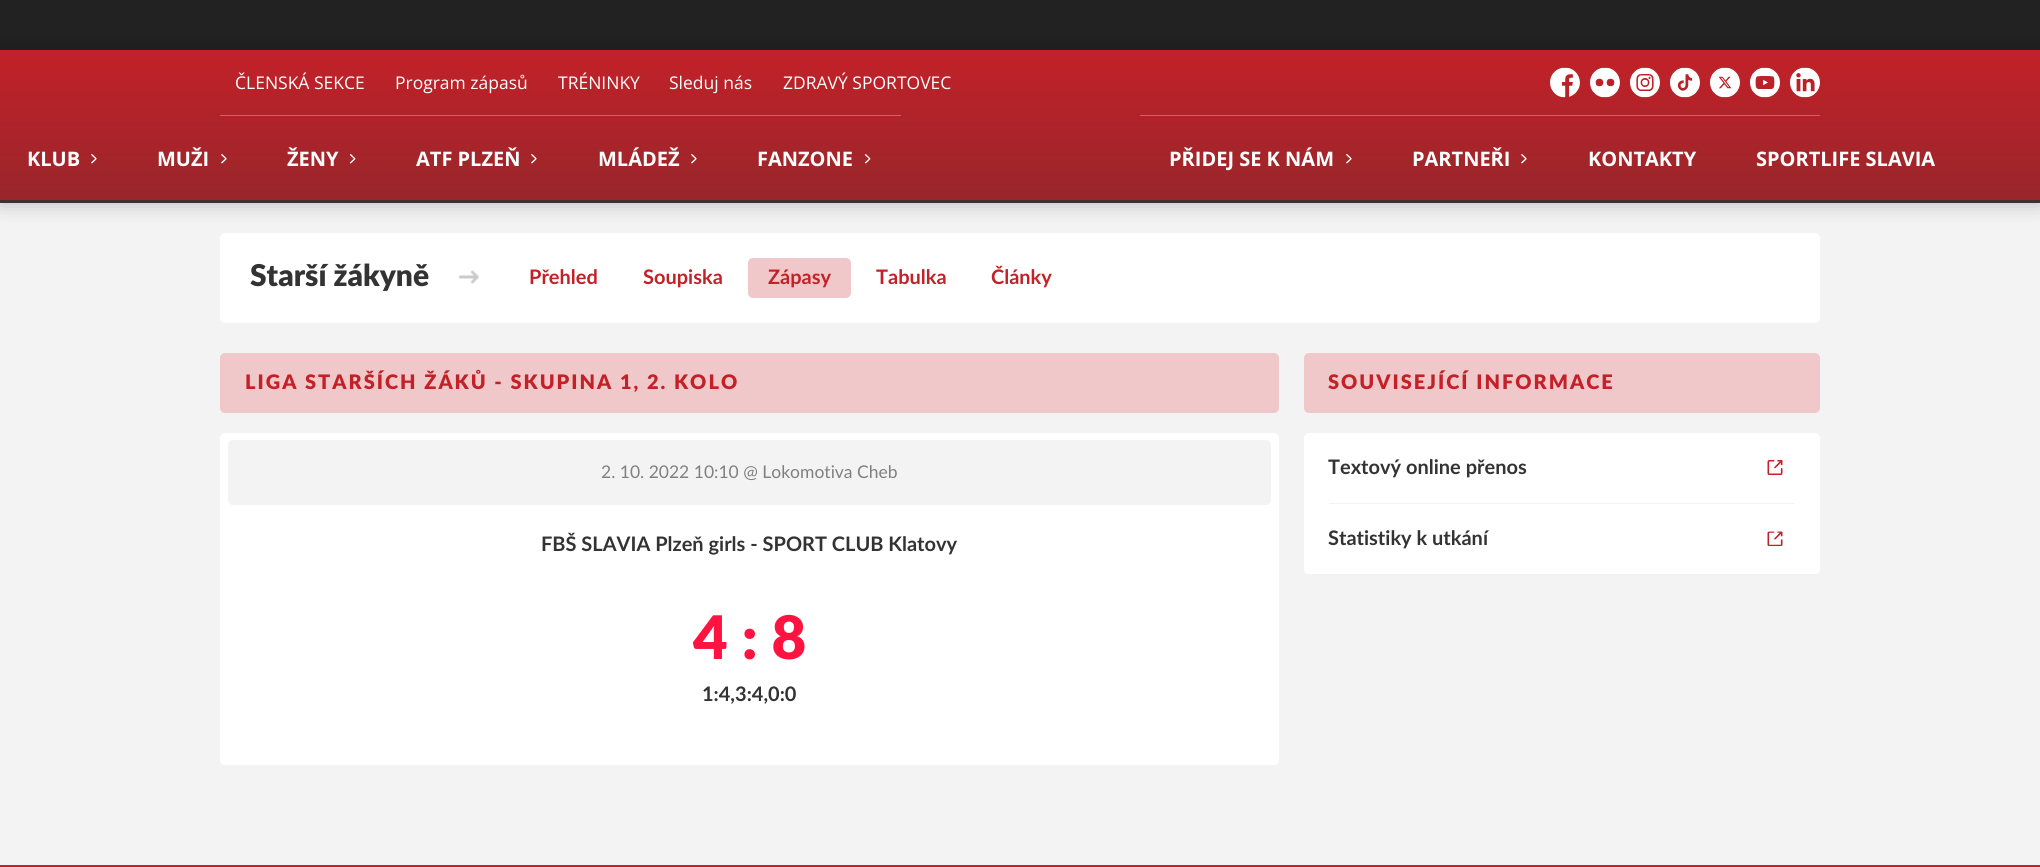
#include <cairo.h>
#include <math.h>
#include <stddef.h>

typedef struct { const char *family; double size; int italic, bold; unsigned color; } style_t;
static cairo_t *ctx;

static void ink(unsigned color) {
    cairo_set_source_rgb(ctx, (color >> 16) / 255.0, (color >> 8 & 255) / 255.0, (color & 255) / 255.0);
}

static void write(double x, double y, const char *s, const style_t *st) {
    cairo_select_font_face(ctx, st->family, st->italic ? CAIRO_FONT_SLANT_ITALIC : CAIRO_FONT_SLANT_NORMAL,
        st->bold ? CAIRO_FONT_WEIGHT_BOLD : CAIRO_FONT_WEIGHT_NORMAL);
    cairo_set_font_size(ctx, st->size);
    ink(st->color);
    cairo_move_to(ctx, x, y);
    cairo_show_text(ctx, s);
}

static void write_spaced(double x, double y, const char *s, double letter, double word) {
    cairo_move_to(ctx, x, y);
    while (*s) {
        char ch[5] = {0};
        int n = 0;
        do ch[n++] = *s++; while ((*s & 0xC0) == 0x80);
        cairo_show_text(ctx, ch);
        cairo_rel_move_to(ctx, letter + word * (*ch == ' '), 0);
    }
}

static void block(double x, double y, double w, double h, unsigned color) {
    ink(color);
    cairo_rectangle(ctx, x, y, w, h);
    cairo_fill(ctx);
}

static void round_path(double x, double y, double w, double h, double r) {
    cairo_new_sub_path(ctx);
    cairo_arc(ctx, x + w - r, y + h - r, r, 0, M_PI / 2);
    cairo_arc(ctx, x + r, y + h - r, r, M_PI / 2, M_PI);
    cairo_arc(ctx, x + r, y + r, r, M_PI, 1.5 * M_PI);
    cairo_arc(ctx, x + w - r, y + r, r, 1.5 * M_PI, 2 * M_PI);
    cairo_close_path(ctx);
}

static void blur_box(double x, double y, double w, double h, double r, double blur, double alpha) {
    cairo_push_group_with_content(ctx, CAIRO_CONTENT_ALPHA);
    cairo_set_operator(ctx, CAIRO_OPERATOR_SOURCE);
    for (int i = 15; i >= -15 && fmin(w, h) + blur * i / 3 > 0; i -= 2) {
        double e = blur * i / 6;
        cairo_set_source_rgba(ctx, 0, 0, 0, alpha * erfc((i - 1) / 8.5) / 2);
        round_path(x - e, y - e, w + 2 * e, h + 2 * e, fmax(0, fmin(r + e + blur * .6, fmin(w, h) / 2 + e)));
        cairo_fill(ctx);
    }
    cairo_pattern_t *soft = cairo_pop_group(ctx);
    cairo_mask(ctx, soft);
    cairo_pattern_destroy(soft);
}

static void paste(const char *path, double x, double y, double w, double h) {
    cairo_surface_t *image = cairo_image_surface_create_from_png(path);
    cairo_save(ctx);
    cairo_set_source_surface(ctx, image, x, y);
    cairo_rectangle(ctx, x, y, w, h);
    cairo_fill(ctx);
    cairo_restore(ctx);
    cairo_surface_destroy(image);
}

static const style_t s1 = {"Open Sans", 17.5, 0, 0, 0xffffff};
static const style_t s2 = {"Open Sans", 20, 0, 1, 0xffffff};
static const style_t s3 = {"Lato Black", 30, 0, 0, 0x333333};
static const style_t s4 = {"Lato", 20, 0, 1, 0xc32128};
static const style_t s5 = {"Lato", 17.5, 0, 0, 0x808080};
static const style_t s6 = {"Lato", 20, 0, 1, 0x333333};
static const style_t s7 = {"Lato Black", 60, 0, 0, 0xff1441};

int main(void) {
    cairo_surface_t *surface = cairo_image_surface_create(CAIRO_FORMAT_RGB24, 2040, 867);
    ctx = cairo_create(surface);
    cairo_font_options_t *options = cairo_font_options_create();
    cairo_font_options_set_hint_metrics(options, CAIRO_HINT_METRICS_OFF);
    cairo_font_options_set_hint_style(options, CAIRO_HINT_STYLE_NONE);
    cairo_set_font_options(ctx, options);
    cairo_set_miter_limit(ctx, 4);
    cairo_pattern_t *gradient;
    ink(0xf3f3f3);
    cairo_paint(ctx);
    block(0, 0, 2040, 50, 0x222222);
    ink(0xffffff);
    round_path(220, 233, 1600, 90, 5);
    cairo_fill(ctx);
    ink(0x000000);
    blur_box(0, 50, 2040, 153, 0, 10, 0.25);
    gradient = cairo_pattern_create_linear(1020, 50, 1020, 200);
    cairo_pattern_add_color_stop_rgba(gradient, 0, 0.765, 0.129, 0.157, 1);
    cairo_pattern_add_color_stop_rgba(gradient, 1, 0.596, 0.149, 0.169, 1);
    cairo_set_source(ctx, gradient);
    cairo_pattern_destroy(gradient);
    cairo_rectangle(ctx, 0, 50, 2040, 150);
    cairo_fill(ctx);
    block(0, 200, 2040, 3, 0x413132);
    write(235, 89, "ČLENSKÁ SEKCE", &s1);
    write(395, 89, "Program zápasů", &s1);
    write(558, 89, "TRÉNINKY", &s1);
    write(669, 89, "Sleduj nás", &s1);
    write(783, 89, "ZDRAVÝ SPORTOVEC", &s1);
    paste("pic1.png", 1550, 67, 30, 31);
    paste("pic2.png", 1590, 67, 30, 31);
    paste("pic3.png", 1630, 67, 30, 31);
    paste("pic4.png", 1670, 67, 30, 31);
    paste("pic5.png", 1710, 67, 30, 31);
    paste("pic6.png", 1750, 67, 30, 31);
    paste("pic7.png", 1790, 67, 30, 31);
    block(220, 115, 681, 1, 0xc86569);
    write(27, 166, "KLUB", &s2);
    paste("pic8.png", 91, 154, 6, 10);
    write(157, 166, "MUŽI", &s2);
    paste("pic8.png", 221, 154, 6, 10);
    write(287, 166, "ŽENY", &s2);
    paste("pic9.png", 349, 154, 7, 10);
    write(416, 166, "ATF PLZEŇ", &s2);
    paste("pic8.png", 531, 154, 6, 10);
    write(598, 166, "MLÁDEŽ", &s2);
    paste("pic8.png", 691, 154, 6, 10);
    write(757, 166, "FANZONE", &s2);
    paste("pic9.png", 864, 154, 7, 10);
    block(1140, 115, 680, 1, 0xc86569);
    write(1169, 166, "PŘIDEJ SE K NÁM", &s2);
    paste("pic8.png", 1346, 154, 6, 10);
    write(1412, 166, "PARTNEŘI", &s2);
    paste("pic10.png", 1521, 154, 6, 10);
    write(1588, 166, "KONTAKTY", &s2);
    write(1756, 166, "SPORTLIFE SLAVIA", &s2);
    write(250, 286, "Starší žákyně", &s3);
    paste("pic11.png", 458, 270, 21, 14);
    write(529, 284, "Přehled", &s4);
    write(643, 284, "Soupiska", &s4);
    ink(0xf0c8c9);
    round_path(748, 258, 103, 40, 5);
    cairo_fill(ctx);
    write(768, 284, "Zápasy", &s4);
    write(876, 284, "Tabulka", &s4);
    write(991, 284, "Články", &s4);
    ink(0xf0c8c9);
    round_path(220, 353, 1059, 60, 5);
    cairo_fill(ctx);
    cairo_select_font_face(ctx, "Lato Black", CAIRO_FONT_SLANT_NORMAL, CAIRO_FONT_WEIGHT_NORMAL);
    ink(0xc32128);
    write_spaced(245, 389, "LIGA STARŠÍCH ŽÁKŮ - SKUPINA 1, 2. KOLO", 2, 0);
    ink(0xffffff);
    round_path(220, 433, 1059, 332, 5);
    cairo_fill(ctx);
    ink(0xf3f3f3);
    round_path(228, 440, 1043, 65, 5);
    cairo_fill(ctx);
    write(601, 478, "2. 10. 2022 10:10 @ Lokomotiva Cheb", &s5);
    write(541, 551, "FBŠ SLAVIA Plzeň girls - SPORT CLUB Klatovy", &s6);
    write(693, 659, "4 : 8", &s7);
    write(702, 701, "1:4,3:4,0:0", &s6);
    ink(0xf0c8c9);
    round_path(1304, 353, 516, 60, 5);
    cairo_fill(ctx);
    cairo_select_font_face(ctx, "Lato Black", CAIRO_FONT_SLANT_NORMAL, CAIRO_FONT_WEIGHT_NORMAL);
    ink(0xc32128);
    write_spaced(1328, 389, "SOUVISEJÍCÍ INFORMACE", 2, 0);
    ink(0xffffff);
    round_path(1304, 433, 516, 141, 5);
    cairo_fill(ctx);
    write(1328, 474, "Textový online přenos", &s6);
    paste("pic12.png", 1767, 460, 16, 15);
    block(1329, 503, 466, 1, 0xf3f3f3);
    write(1328, 545, "Statistiky k utkání", &s6);
    paste("pic13.png", 1767, 531, 16, 15);
    block(0, 865, 2040, 2, 0xc32128);
    cairo_surface_write_to_png(surface, "screenshot.png");
    cairo_font_options_destroy(options);
    cairo_destroy(ctx);
    cairo_surface_destroy(surface);
    return 0;
}
